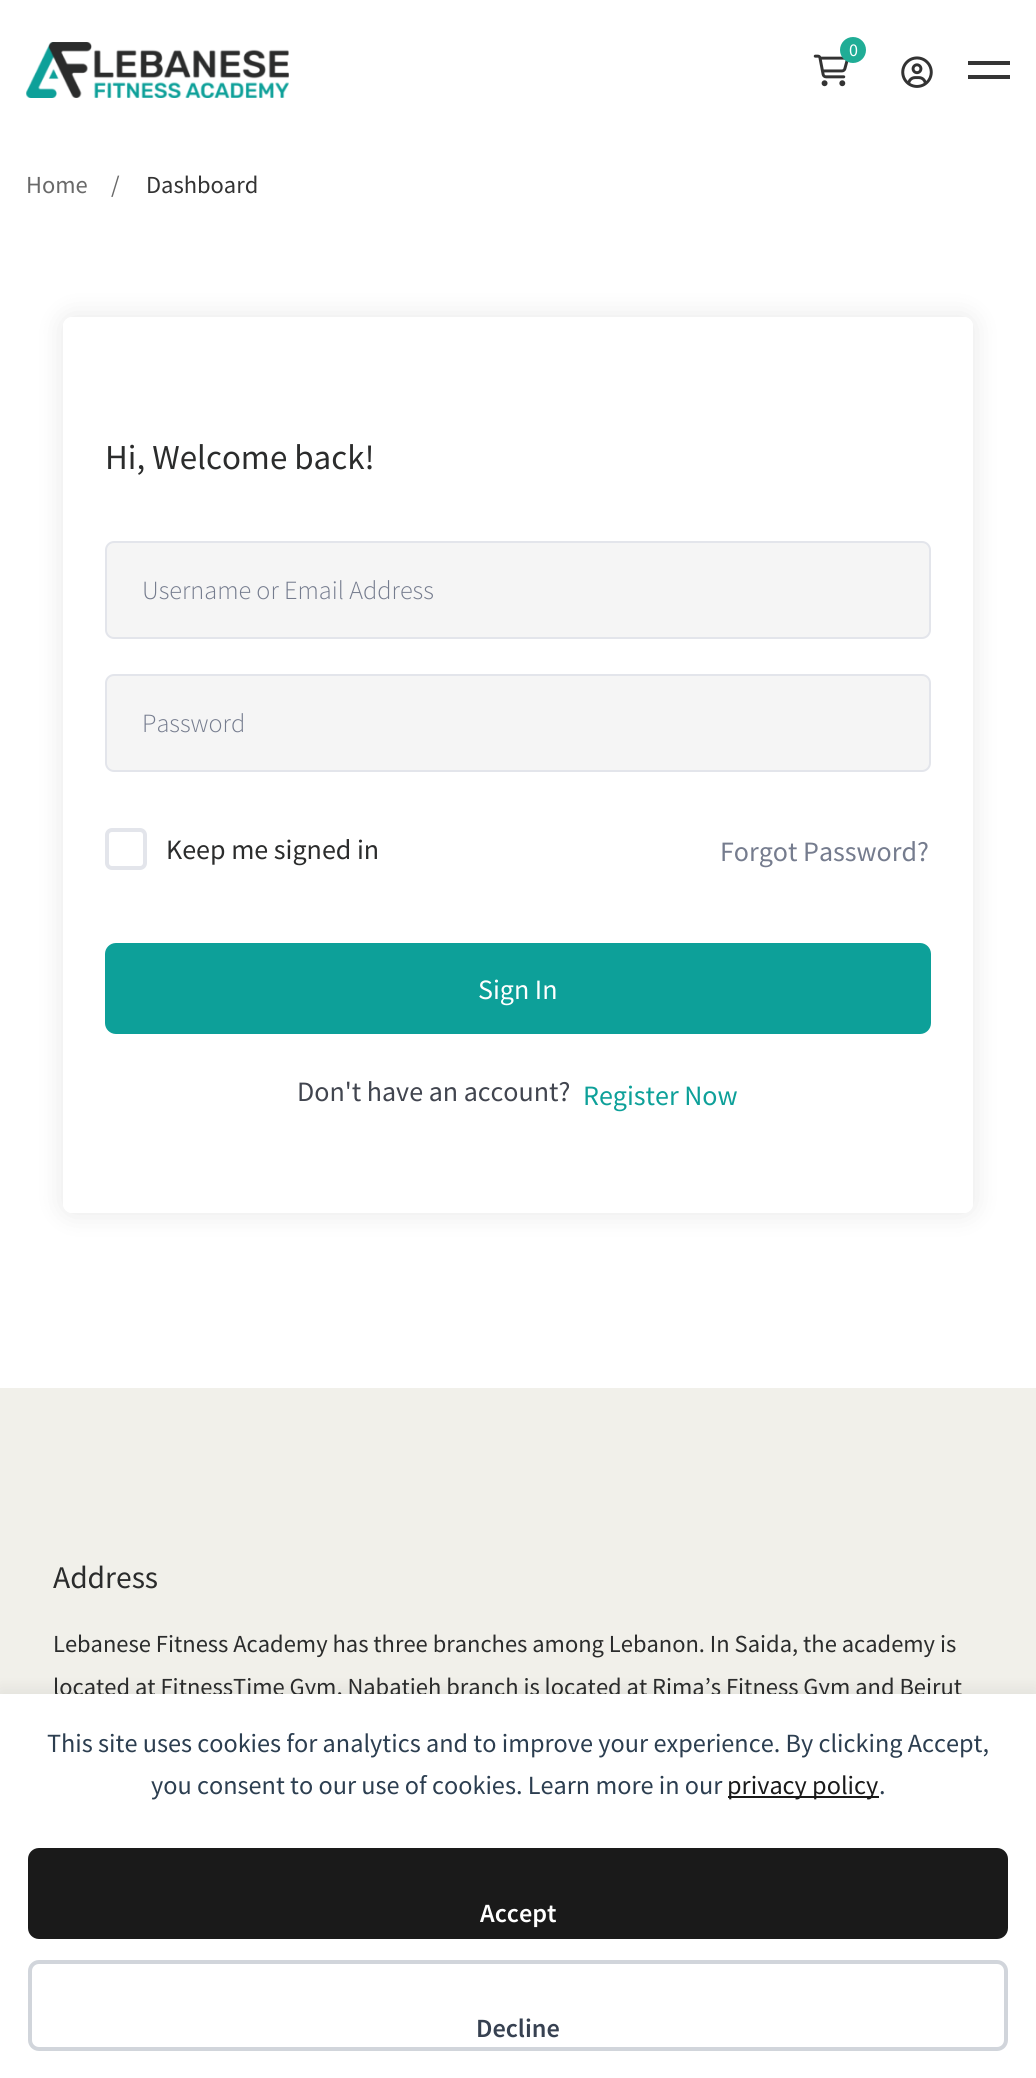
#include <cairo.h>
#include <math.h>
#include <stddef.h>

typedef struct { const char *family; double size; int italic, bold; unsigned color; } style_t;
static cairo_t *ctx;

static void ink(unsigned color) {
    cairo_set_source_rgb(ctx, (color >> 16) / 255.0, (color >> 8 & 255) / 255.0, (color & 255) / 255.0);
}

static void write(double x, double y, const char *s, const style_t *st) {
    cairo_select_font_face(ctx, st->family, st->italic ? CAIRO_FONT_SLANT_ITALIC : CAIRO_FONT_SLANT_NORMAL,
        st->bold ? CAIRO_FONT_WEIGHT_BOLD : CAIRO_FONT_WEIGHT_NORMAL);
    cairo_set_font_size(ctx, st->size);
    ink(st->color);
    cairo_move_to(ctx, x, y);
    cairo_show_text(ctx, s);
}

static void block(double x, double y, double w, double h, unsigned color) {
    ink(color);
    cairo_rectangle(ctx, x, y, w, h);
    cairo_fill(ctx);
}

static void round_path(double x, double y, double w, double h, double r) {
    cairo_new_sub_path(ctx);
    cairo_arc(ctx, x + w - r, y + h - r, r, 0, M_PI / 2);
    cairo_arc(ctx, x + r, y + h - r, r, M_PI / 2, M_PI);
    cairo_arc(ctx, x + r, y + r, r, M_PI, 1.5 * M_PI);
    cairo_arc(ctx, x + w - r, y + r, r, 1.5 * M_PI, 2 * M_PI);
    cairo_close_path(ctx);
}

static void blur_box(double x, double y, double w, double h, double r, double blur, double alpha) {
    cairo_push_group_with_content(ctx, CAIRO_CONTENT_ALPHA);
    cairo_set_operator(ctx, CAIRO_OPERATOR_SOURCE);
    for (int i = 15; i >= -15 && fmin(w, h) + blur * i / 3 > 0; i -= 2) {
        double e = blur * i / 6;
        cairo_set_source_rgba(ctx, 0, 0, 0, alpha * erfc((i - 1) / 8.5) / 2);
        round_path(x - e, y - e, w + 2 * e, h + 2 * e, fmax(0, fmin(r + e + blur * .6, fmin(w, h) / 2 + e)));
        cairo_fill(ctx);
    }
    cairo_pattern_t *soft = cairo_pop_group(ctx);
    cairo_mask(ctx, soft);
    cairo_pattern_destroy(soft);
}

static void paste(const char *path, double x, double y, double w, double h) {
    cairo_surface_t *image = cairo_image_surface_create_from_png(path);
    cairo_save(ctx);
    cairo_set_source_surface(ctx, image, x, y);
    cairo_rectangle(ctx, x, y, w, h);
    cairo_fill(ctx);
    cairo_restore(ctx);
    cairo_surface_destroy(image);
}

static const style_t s1 = {"Source Sans Pro", 18, 0, 0, 0xffffff};
static const style_t s2 = {"Source Sans Pro", 24.5, 0, 0, 0x696969};
static const style_t s3 = {"Source Sans Pro", 24.5, 0, 0, 0x333333};
static const style_t s4 = {"Source Sans Pro", 35, 0, 0, 0x2b2c2c};
static const style_t s5 = {"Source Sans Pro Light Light", 26.25, 0, 0, 0x757c8e};
static const style_t s6 = {"Source Sans Pro", 28, 0, 0, 0x2b2c2c};
static const style_t s7 = {"Source Sans Pro", 28, 0, 0, 0x757c8e};
static const style_t s8 = {"Source Sans Pro", 28, 0, 0, 0xffffff};
static const style_t s9 = {"Source Sans Pro", 28, 0, 0, 0x41454f};
static const style_t s10 = {"Source Sans Pro", 28, 0, 0, 0x0da099};
static const style_t s11 = {"Source Sans Pro", 31.5, 0, 0, 0x2b2c2c};
static const style_t s12 = {"Source Sans Pro", 24.5, 0, 0, 0x2b2c2c};
static const style_t s13 = {"Source Sans Pro", 26.25, 0, 0, 0x2c3e50};
static const style_t s14 = {"Source Sans Pro", 26.25, 0, 0, 0x1a1a1a};
static const style_t s15 = {"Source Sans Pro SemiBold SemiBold", 26.25, 0, 0, 0xffffff};
static const style_t s16 = {"Source Sans Pro SemiBold SemiBold", 26.25, 0, 0, 0x374151};

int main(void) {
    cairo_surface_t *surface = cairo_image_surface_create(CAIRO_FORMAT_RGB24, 1036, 2078);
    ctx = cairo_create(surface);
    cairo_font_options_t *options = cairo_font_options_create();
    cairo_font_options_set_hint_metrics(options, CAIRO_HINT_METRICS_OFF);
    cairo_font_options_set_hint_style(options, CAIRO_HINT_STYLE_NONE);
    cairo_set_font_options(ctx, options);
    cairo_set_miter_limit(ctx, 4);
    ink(0xffffff);
    cairo_paint(ctx);
    paste("pic1.png", 26, 42, 263, 56);
    paste("pic2.png", 813, 54, 36, 33);
    ink(0x20ad96);
    cairo_arc(ctx, 853, 50, 13, 0, 2 * M_PI);
    cairo_fill(ctx);
    write(849, 56, "0", &s1);
    paste("pic3.png", 901, 56, 32, 32);
    block(968, 61, 42, 4, 0x353535);
    block(968, 75, 42, 4, 0x353535);
    write(26, 193, "Home", &s2);
    write(111, 193, "/", &s2);
    write(146, 193, "Dashboard", &s3);
    cairo_save(ctx);
    cairo_set_fill_rule(ctx, CAIRO_FILL_RULE_EVEN_ODD);
    cairo_new_path(ctx);
    cairo_move_to(ctx, 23, 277);
    cairo_line_to(ctx, 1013, 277);
    cairo_line_to(ctx, 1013, 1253);
    cairo_line_to(ctx, 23, 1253);
    cairo_close_path(ctx);
    cairo_move_to(ctx, 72, 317);
    cairo_line_to(ctx, 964, 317);
    cairo_curve_to(ctx, 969, 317, 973, 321, 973, 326);
    cairo_line_to(ctx, 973, 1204);
    cairo_curve_to(ctx, 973, 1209, 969, 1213, 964, 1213);
    cairo_line_to(ctx, 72, 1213);
    cairo_curve_to(ctx, 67, 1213, 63, 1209, 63, 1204);
    cairo_line_to(ctx, 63, 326);
    cairo_curve_to(ctx, 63, 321, 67, 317, 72, 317);
    cairo_close_path(ctx);
    cairo_clip(ctx);
    ink(0x000000);
    blur_box(63, 317, 910, 896, 9, 13, 0.1);
    cairo_restore(ctx);
    write(105, 469, "Hi, Welcome back!", &s4);
    ink(0xf5f5f5);
    round_path(106, 542, 824, 96, 8);
    cairo_fill_preserve(ctx);
    ink(0xe3e5eb);
    cairo_stroke(ctx);
    write(142, 599, "Username or Email Address", &s5);
    ink(0xf5f5f5);
    round_path(106, 675, 824, 96, 8);
    cairo_fill_preserve(ctx);
    ink(0xe3e5eb);
    cairo_stroke(ctx);
    write(142, 732, "Password", &s5);
    round_path(107, 830, 38, 38, 5);
    ink(0xe3e5eb);
    cairo_set_line_width(ctx, 4);
    cairo_stroke(ctx);
    write(166, 859, "Keep me signed in", &s6);
    write(720, 861, "Forgot Password?", &s7);
    ink(0x0da099);
    round_path(106, 944, 824, 89, 10);
    cairo_fill_preserve(ctx);
    cairo_set_line_width(ctx, 2);
    cairo_stroke(ctx);
    write(478, 999, "Sign In", &s8);
    write(297, 1101, "Don't have an account?", &s9);
    write(583, 1105, "Register Now", &s10);
    block(0, 1388, 1036, 306, 0xf1f0ea);
    write(53, 1588, "Address", &s11);
    write(53, 1652, "Lebanese Fitness Academy has three branches among Lebanon. In Saida, the academy is", &s12);
    write(53, 1695, "located at FitnessTime Gym, Nabatieh branch is located at Rima’s Fitness Gym and Beirut", &s12);
    ink(0x000000);
    blur_box(0, 1691, 1036, 385, 0, 9, 0.08);
    block(0, 1694, 1036, 384, 0xffffff);
    write(47, 1752, "This site uses cookies for analytics and to improve your experience. By clicking Accept,", &s13);
    write(151, 1794, "you consent to our use of cookies. Learn more in our", &s13);
    block(728, 1796, 151, 2, 0x1a1a1a);
    write(727, 1794, "privacy policy", &s14);
    write(879, 1794, ".", &s13);
    ink(0x1a1a1a);
    round_path(28, 1848, 980, 91, 11);
    cairo_fill(ctx);
    write(480, 1922, "Accept", &s15);
    round_path(30, 1962, 976, 87, 9);
    ink(0xd1d5db);
    cairo_set_line_width(ctx, 4);
    cairo_stroke(ctx);
    write(476, 2037, "Decline", &s16);
    cairo_surface_write_to_png(surface, "screenshot.png");
    cairo_font_options_destroy(options);
    cairo_destroy(ctx);
    cairo_surface_destroy(surface);
    return 0;
}
